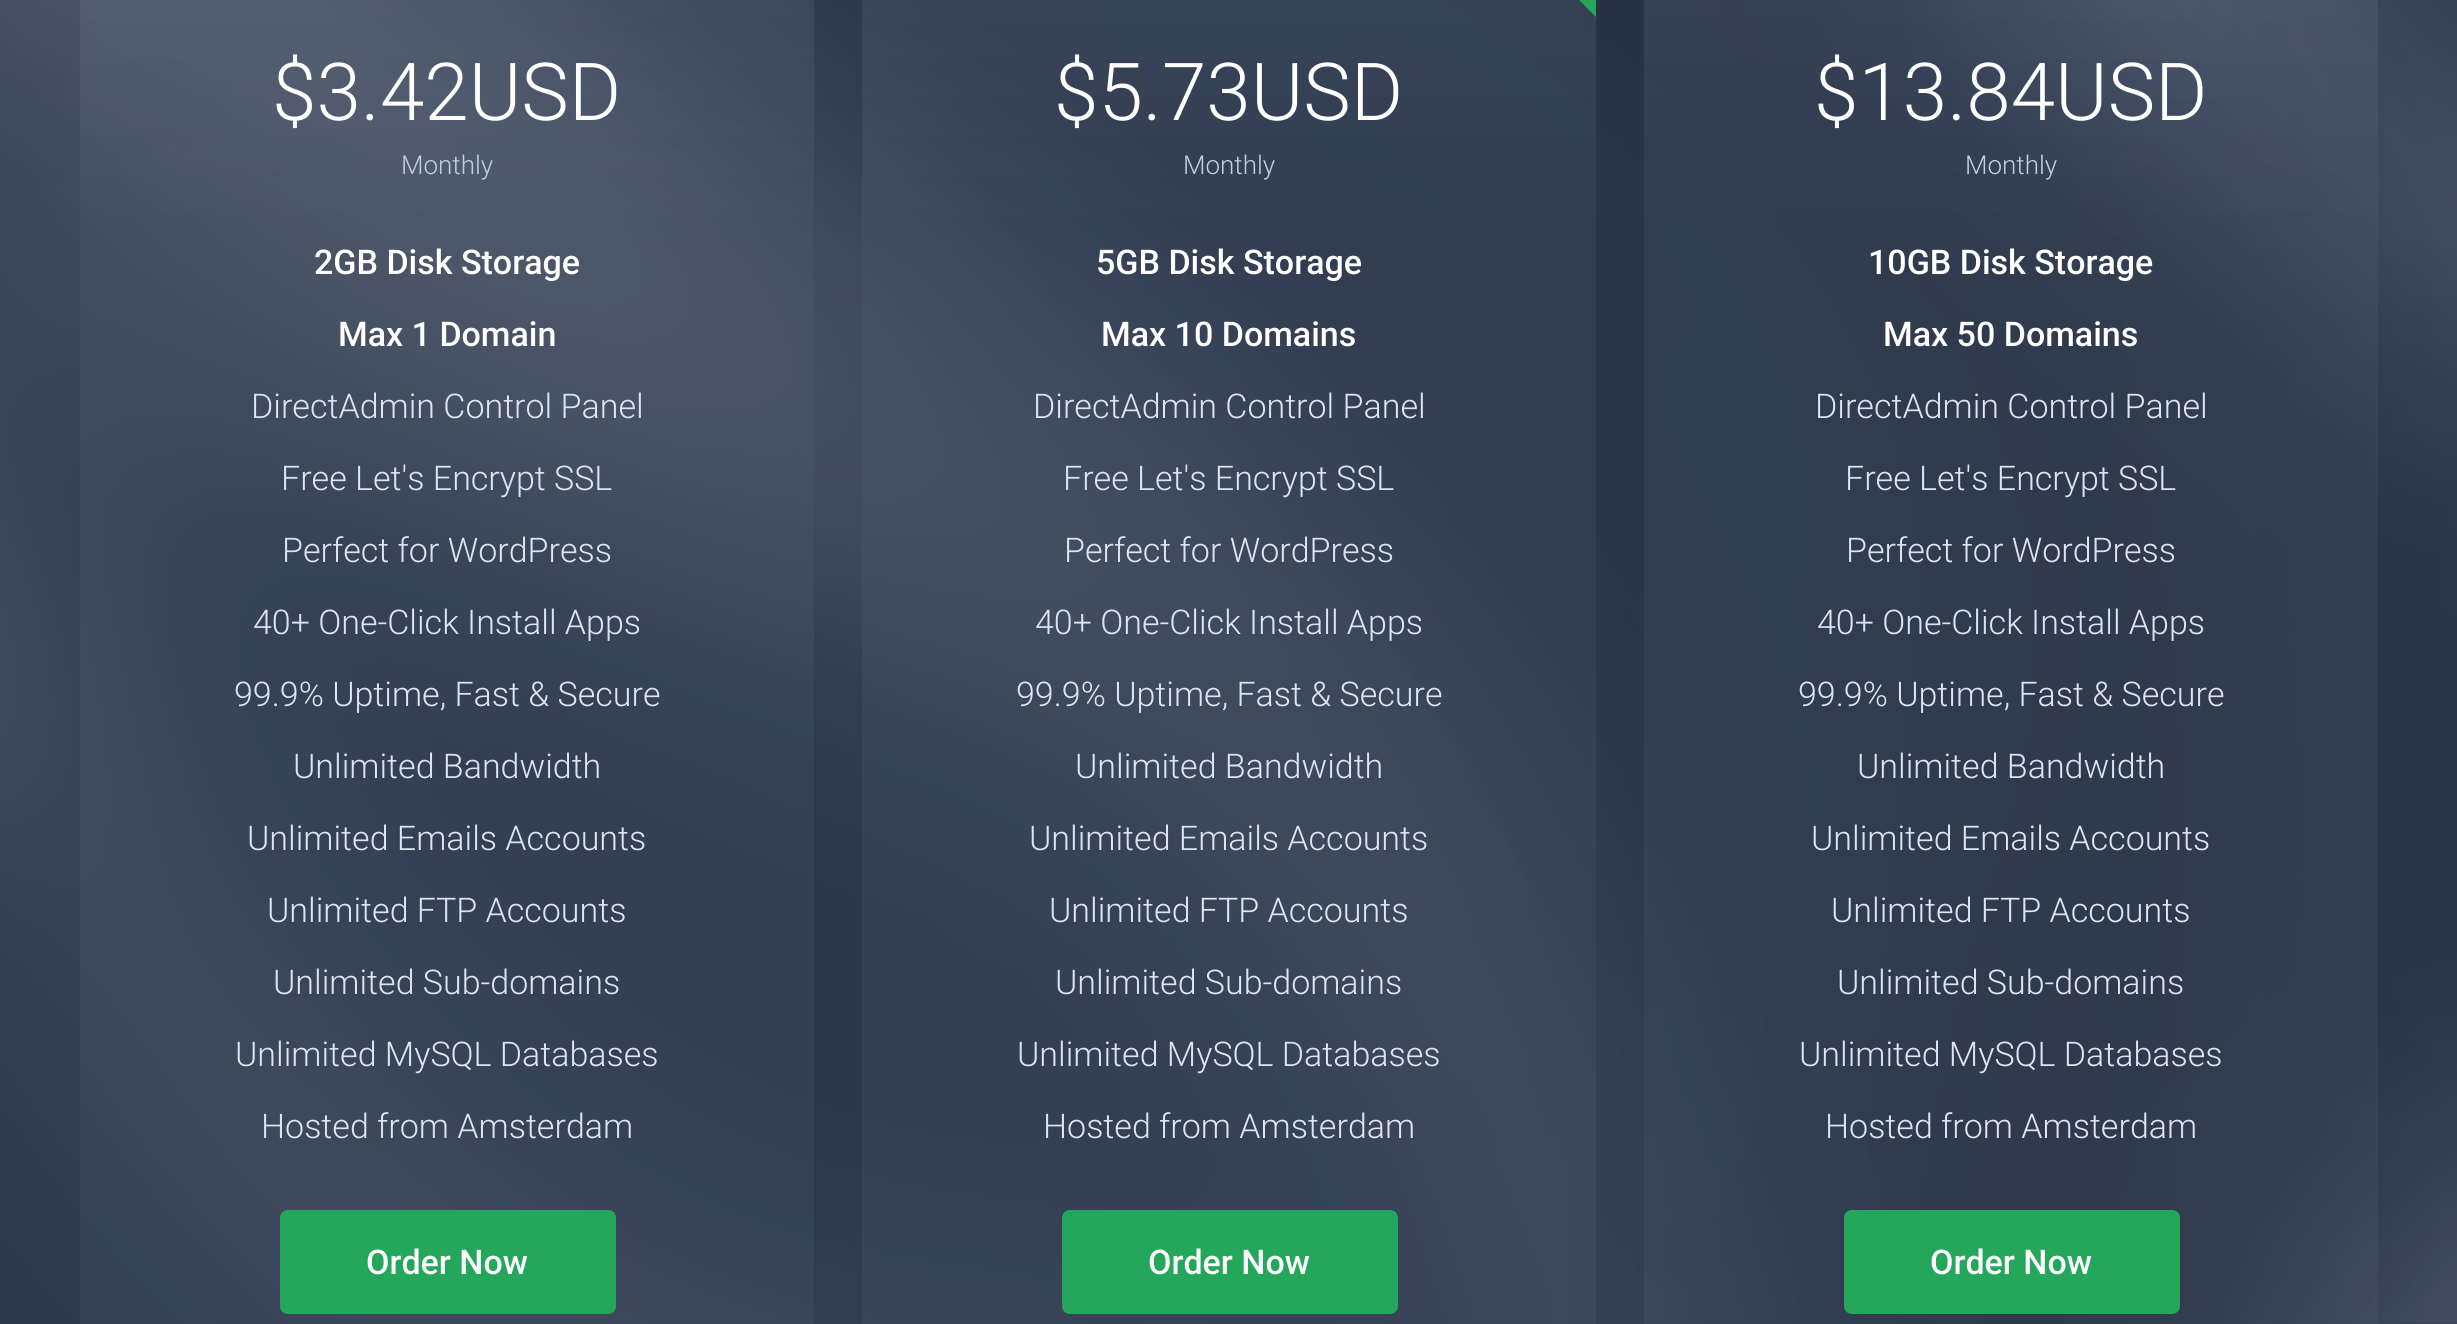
#include <cairo.h>
#include <math.h>
#include <stddef.h>

typedef struct { const char *family; double size; int italic, bold; unsigned color; } style_t;
static cairo_t *ctx;

static void ink(unsigned color) {
    cairo_set_source_rgb(ctx, (color >> 16) / 255.0, (color >> 8 & 255) / 255.0, (color & 255) / 255.0);
}

static void write(double x, double y, const char *s, const style_t *st) {
    cairo_select_font_face(ctx, st->family, st->italic ? CAIRO_FONT_SLANT_ITALIC : CAIRO_FONT_SLANT_NORMAL,
        st->bold ? CAIRO_FONT_WEIGHT_BOLD : CAIRO_FONT_WEIGHT_NORMAL);
    cairo_set_font_size(ctx, st->size);
    ink(st->color);
    cairo_move_to(ctx, x, y);
    cairo_show_text(ctx, s);
}

static void round_path(double x, double y, double w, double h, double r) {
    cairo_new_sub_path(ctx);
    cairo_arc(ctx, x + w - r, y + h - r, r, 0, M_PI / 2);
    cairo_arc(ctx, x + r, y + h - r, r, M_PI / 2, M_PI);
    cairo_arc(ctx, x + r, y + r, r, M_PI, 1.5 * M_PI);
    cairo_arc(ctx, x + w - r, y + r, r, 1.5 * M_PI, 2 * M_PI);
    cairo_close_path(ctx);
}

static void paste(const char *path, double x, double y, double w, double h) {
    cairo_surface_t *image = cairo_image_surface_create_from_png(path);
    cairo_save(ctx);
    cairo_set_source_surface(ctx, image, x, y);
    cairo_rectangle(ctx, x, y, w, h);
    cairo_fill(ctx);
    cairo_restore(ctx);
    cairo_surface_destroy(image);
}

static const style_t s1 = {"Roboto Light", 80, 0, 0, 0xffffff};
static const style_t s2 = {"Roboto Light", 26, 0, 0, 0xc3cee2};
static const style_t s3 = {"Roboto Medium", 34, 0, 0, 0xffffff};
static const style_t s4 = {"Roboto Light", 34, 0, 0, 0xdee4f2};

int main(void) {
    cairo_surface_t *surface = cairo_image_surface_create(CAIRO_FORMAT_RGB24, 2457, 1324);
    ctx = cairo_create(surface);
    cairo_font_options_t *options = cairo_font_options_create();
    cairo_font_options_set_hint_metrics(options, CAIRO_HINT_METRICS_OFF);
    cairo_font_options_set_hint_style(options, CAIRO_HINT_STYLE_NONE);
    cairo_set_font_options(ctx, options);
    cairo_set_miter_limit(ctx, 4);
    cairo_pattern_t *gradient;
    ink(0x2c374c);
    cairo_paint(ctx);
    paste("pic1.png", 0, 0, 2457, 1324);
    gradient = cairo_pattern_create_linear(447, -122, 447, 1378);
    cairo_pattern_add_color_stop_rgba(gradient, 0, 0.592, 0.643, 0.745, 0.16);
    cairo_pattern_add_color_stop_rgba(gradient, 0.24, 0.365, 0.412, 0.502, 0.16);
    cairo_pattern_add_color_stop_rgba(gradient, 1, 0.365, 0.412, 0.502, 0.16);
    cairo_set_source(ctx, gradient);
    cairo_pattern_destroy(gradient);
    cairo_rectangle(ctx, 80, 0, 734, 1324);
    cairo_fill(ctx);
    write(272, 120, "$3.42USD", &s1);
    write(401, 174, "Monthly", &s2);
    write(314, 274, "2GB Disk Storage", &s3);
    write(338, 346, "Max 1 Domain", &s3);
    write(251, 418, "DirectAdmin Control Panel", &s4);
    write(281, 490, "Free Let's Encrypt SSL", &s4);
    write(282, 562, "Perfect for WordPress", &s4);
    write(253, 634, "40+ One-Click Install Apps", &s4);
    write(234, 706, "99.9% Uptime, Fast & Secure", &s4);
    write(293, 778, "Unlimited Bandwidth", &s4);
    write(247, 850, "Unlimited Emails Accounts", &s4);
    write(267, 922, "Unlimited FTP Accounts", &s4);
    write(273, 994, "Unlimited Sub-domains", &s4);
    write(235, 1066, "Unlimited MySQL Databases", &s4);
    write(261, 1138, "Hosted from Amsterdam", &s4);
    ink(0x25a75b);
    round_path(281, 1211, 334, 102, 7);
    cairo_fill_preserve(ctx);
    cairo_stroke(ctx);
    write(366, 1274, "Order Now", &s3);
    gradient = cairo_pattern_create_linear(1229, -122, 1229, 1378);
    cairo_pattern_add_color_stop_rgba(gradient, 0, 0.592, 0.643, 0.745, 0.16);
    cairo_pattern_add_color_stop_rgba(gradient, 0.24, 0.365, 0.412, 0.502, 0.16);
    cairo_pattern_add_color_stop_rgba(gradient, 1, 0.365, 0.412, 0.502, 0.16);
    cairo_set_source(ctx, gradient);
    cairo_pattern_destroy(gradient);
    cairo_rectangle(ctx, 862, 0, 734, 1324);
    cairo_fill(ctx);
    ink(0x25a75b);
    cairo_new_path(ctx);
    cairo_move_to(ctx, 1596, -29);
    cairo_line_to(ctx, 1596, 17);
    cairo_line_to(ctx, 1458, -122);
    cairo_line_to(ctx, 1502, -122);
    cairo_close_path(ctx);
    cairo_fill(ctx);
    write(1054, 120, "$5.73USD", &s1);
    write(1183, 174, "Monthly", &s2);
    write(1096, 274, "5GB Disk Storage", &s3);
    write(1101, 346, "Max 10 Domains", &s3);
    write(1033, 418, "DirectAdmin Control Panel", &s4);
    write(1063, 490, "Free Let's Encrypt SSL", &s4);
    write(1064, 562, "Perfect for WordPress", &s4);
    write(1035, 634, "40+ One-Click Install Apps", &s4);
    write(1016, 706, "99.9% Uptime, Fast & Secure", &s4);
    write(1075, 778, "Unlimited Bandwidth", &s4);
    write(1029, 850, "Unlimited Emails Accounts", &s4);
    write(1049, 922, "Unlimited FTP Accounts", &s4);
    write(1055, 994, "Unlimited Sub-domains", &s4);
    write(1017, 1066, "Unlimited MySQL Databases", &s4);
    write(1043, 1138, "Hosted from Amsterdam", &s4);
    ink(0x25a75b);
    round_path(1063, 1211, 334, 102, 7);
    cairo_fill_preserve(ctx);
    cairo_stroke(ctx);
    write(1148, 1274, "Order Now", &s3);
    gradient = cairo_pattern_create_linear(2011, -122, 2011, 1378);
    cairo_pattern_add_color_stop_rgba(gradient, 0, 0.592, 0.643, 0.745, 0.16);
    cairo_pattern_add_color_stop_rgba(gradient, 0.24, 0.365, 0.412, 0.502, 0.16);
    cairo_pattern_add_color_stop_rgba(gradient, 1, 0.365, 0.412, 0.502, 0.16);
    cairo_set_source(ctx, gradient);
    cairo_pattern_destroy(gradient);
    cairo_rectangle(ctx, 1644, 0, 734, 1324);
    cairo_fill(ctx);
    write(1814, 120, "$13.84USD", &s1);
    write(1965, 174, "Monthly", &s2);
    write(1868, 274, "10GB Disk Storage", &s3);
    write(1883, 346, "Max 50 Domains", &s3);
    write(1815, 418, "DirectAdmin Control Panel", &s4);
    write(1845, 490, "Free Let's Encrypt SSL", &s4);
    write(1846, 562, "Perfect for WordPress", &s4);
    write(1817, 634, "40+ One-Click Install Apps", &s4);
    write(1798, 706, "99.9% Uptime, Fast & Secure", &s4);
    write(1857, 778, "Unlimited Bandwidth", &s4);
    write(1811, 850, "Unlimited Emails Accounts", &s4);
    write(1831, 922, "Unlimited FTP Accounts", &s4);
    write(1837, 994, "Unlimited Sub-domains", &s4);
    write(1799, 1066, "Unlimited MySQL Databases", &s4);
    write(1825, 1138, "Hosted from Amsterdam", &s4);
    ink(0x25a75b);
    round_path(1845, 1211, 334, 102, 7);
    cairo_fill_preserve(ctx);
    cairo_stroke(ctx);
    write(1930, 1274, "Order Now", &s3);
    cairo_surface_write_to_png(surface, "screenshot.png");
    cairo_font_options_destroy(options);
    cairo_destroy(ctx);
    cairo_surface_destroy(surface);
    return 0;
}
